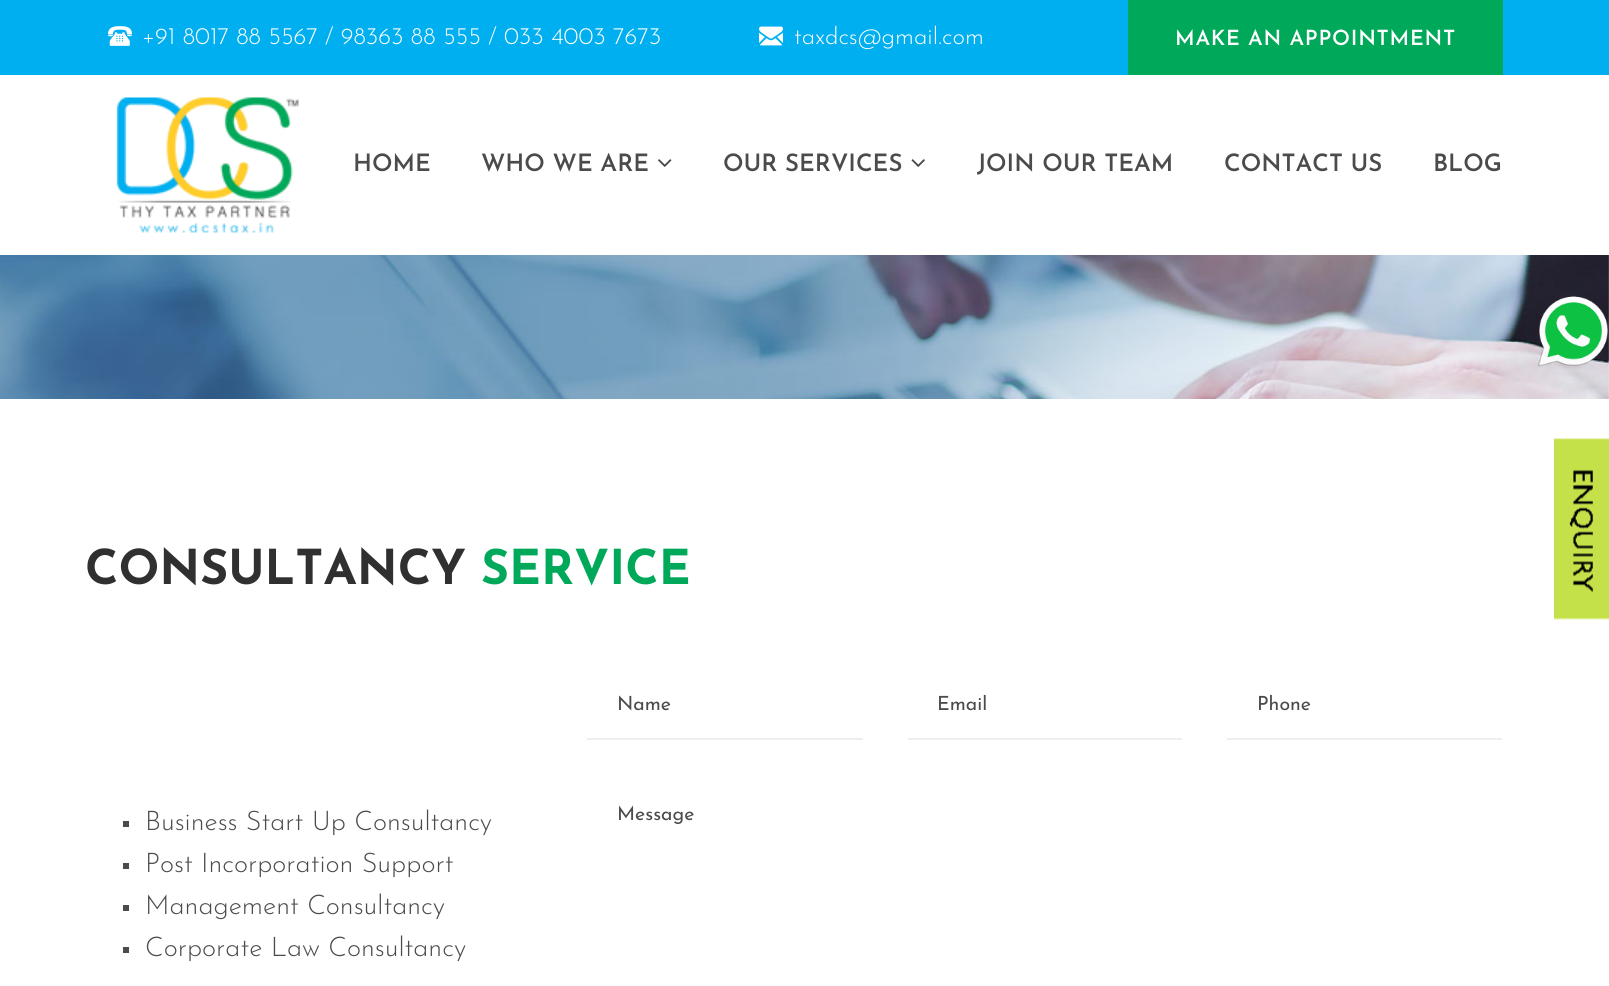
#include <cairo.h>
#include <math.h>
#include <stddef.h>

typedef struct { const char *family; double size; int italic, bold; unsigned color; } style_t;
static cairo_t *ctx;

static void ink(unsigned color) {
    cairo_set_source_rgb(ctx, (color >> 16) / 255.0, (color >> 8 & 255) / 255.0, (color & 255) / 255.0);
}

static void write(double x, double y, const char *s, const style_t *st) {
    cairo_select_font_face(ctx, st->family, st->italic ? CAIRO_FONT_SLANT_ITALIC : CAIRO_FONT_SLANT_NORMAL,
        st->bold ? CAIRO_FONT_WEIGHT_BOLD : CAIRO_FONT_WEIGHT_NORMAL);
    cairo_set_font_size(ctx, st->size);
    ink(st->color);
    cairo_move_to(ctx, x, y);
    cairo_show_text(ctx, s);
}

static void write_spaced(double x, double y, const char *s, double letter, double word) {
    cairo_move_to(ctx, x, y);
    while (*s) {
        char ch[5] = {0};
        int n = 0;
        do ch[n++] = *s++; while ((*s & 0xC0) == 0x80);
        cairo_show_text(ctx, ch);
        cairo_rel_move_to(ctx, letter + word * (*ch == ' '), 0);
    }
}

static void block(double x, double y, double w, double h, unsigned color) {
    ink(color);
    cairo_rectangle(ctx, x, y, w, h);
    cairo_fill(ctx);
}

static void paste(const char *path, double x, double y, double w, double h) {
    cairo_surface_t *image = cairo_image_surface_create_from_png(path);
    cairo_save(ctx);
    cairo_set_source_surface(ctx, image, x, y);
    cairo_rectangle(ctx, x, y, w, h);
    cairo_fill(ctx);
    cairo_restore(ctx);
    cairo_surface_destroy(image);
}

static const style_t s1 = {"Josefin Sans Light", 24, 0, 0, 0xffffff};
static const style_t s2 = {"Josefin Sans SemiBold", 24, 0, 0, 0x4b4b4b};
static const style_t s3 = {"Josefin Sans", 48, 0, 1, 0x303030};
static const style_t s4 = {"Josefin Sans", 48, 0, 1, 0x00a859};
static const style_t s5 = {"Josefin Sans", 19.5, 0, 0, 0x4b4b4b};
static const style_t s6 = {"Josefin Sans Light", 27, 0, 0, 0x4b4b4b};

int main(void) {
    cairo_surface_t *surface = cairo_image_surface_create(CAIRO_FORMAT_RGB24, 1609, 986);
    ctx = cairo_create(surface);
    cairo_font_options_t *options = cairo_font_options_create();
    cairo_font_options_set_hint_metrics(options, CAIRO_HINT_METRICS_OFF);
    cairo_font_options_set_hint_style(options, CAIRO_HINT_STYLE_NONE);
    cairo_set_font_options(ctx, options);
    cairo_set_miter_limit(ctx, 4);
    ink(0xffffff);
    cairo_paint(ctx);
    block(0, 0, 1609, 75, 0x00afef);
    paste("pic1.png", 108, 26, 24, 20);
    write(142, 44, "+91 8017 88 5567 / 98363 88 555 / 033 4003 7673", &s1);
    paste("pic2.png", 759, 26, 24, 20);
    write(794, 44, "taxdcs@gmail.com", &s1);
    block(1128, 0, 375, 75, 0x00a859);
    cairo_select_font_face(ctx, "Josefin Sans SemiBold", CAIRO_FONT_SLANT_NORMAL, CAIRO_FONT_WEIGHT_NORMAL);
    cairo_set_font_size(ctx, 21);
    ink(0xffffff);
    write_spaced(1175, 45, "MAKE AN APPOINTMENT", 0.75, 0);
    paste("pic3.png", 116, 97, 183, 136);
    write(353, 171, "HOME", &s2);
    write(481, 171, "WHO WE ARE", &s2);
    paste("pic4.png", 658, 159, 14, 8);
    write(723, 171, "OUR SERVICES", &s2);
    paste("pic5.png", 911, 159, 14, 8);
    write(977, 171, "JOIN OUR TEAM", &s2);
    write(1224, 171, "CONTACT US", &s2);
    write(1433, 171, "BLOG", &s2);
    paste("pic7.png", 0, 255, 1609, 144);
    paste("pic6.png", 1538, 296, 71, 71);
    write(85, 584, "CONSULTANCY", &s3);
    write(481, 584, "SERVICE", &s4);
    block(587, 738, 276, 2, 0xeeeeee);
    write(617, 710, "Name", &s5);
    block(908, 738, 274, 2, 0xeeeeee);
    write(937, 710, "Email", &s5);
    block(1227, 738, 275, 2, 0xeeeeee);
    write(1257, 710, "Phone", &s5);
    write(617, 820, "Message", &s5);
    block(123, 821, 6, 6, 0x4b4b4b);
    write(145, 830, "Business Start Up Consultancy", &s6);
    block(123, 863, 6, 6, 0x4b4b4b);
    write(145, 872, "Post Incorporation Support", &s6);
    block(123, 905, 6, 6, 0x4b4b4b);
    write(145, 914, "Management Consultancy", &s6);
    block(123, 947, 6, 6, 0x4b4b4b);
    write(145, 956, "Corporate Law Consultancy", &s6);
    paste("pic8.png", 1554, 438, 55, 182);
    cairo_surface_write_to_png(surface, "screenshot.png");
    cairo_font_options_destroy(options);
    cairo_destroy(ctx);
    cairo_surface_destroy(surface);
    return 0;
}
